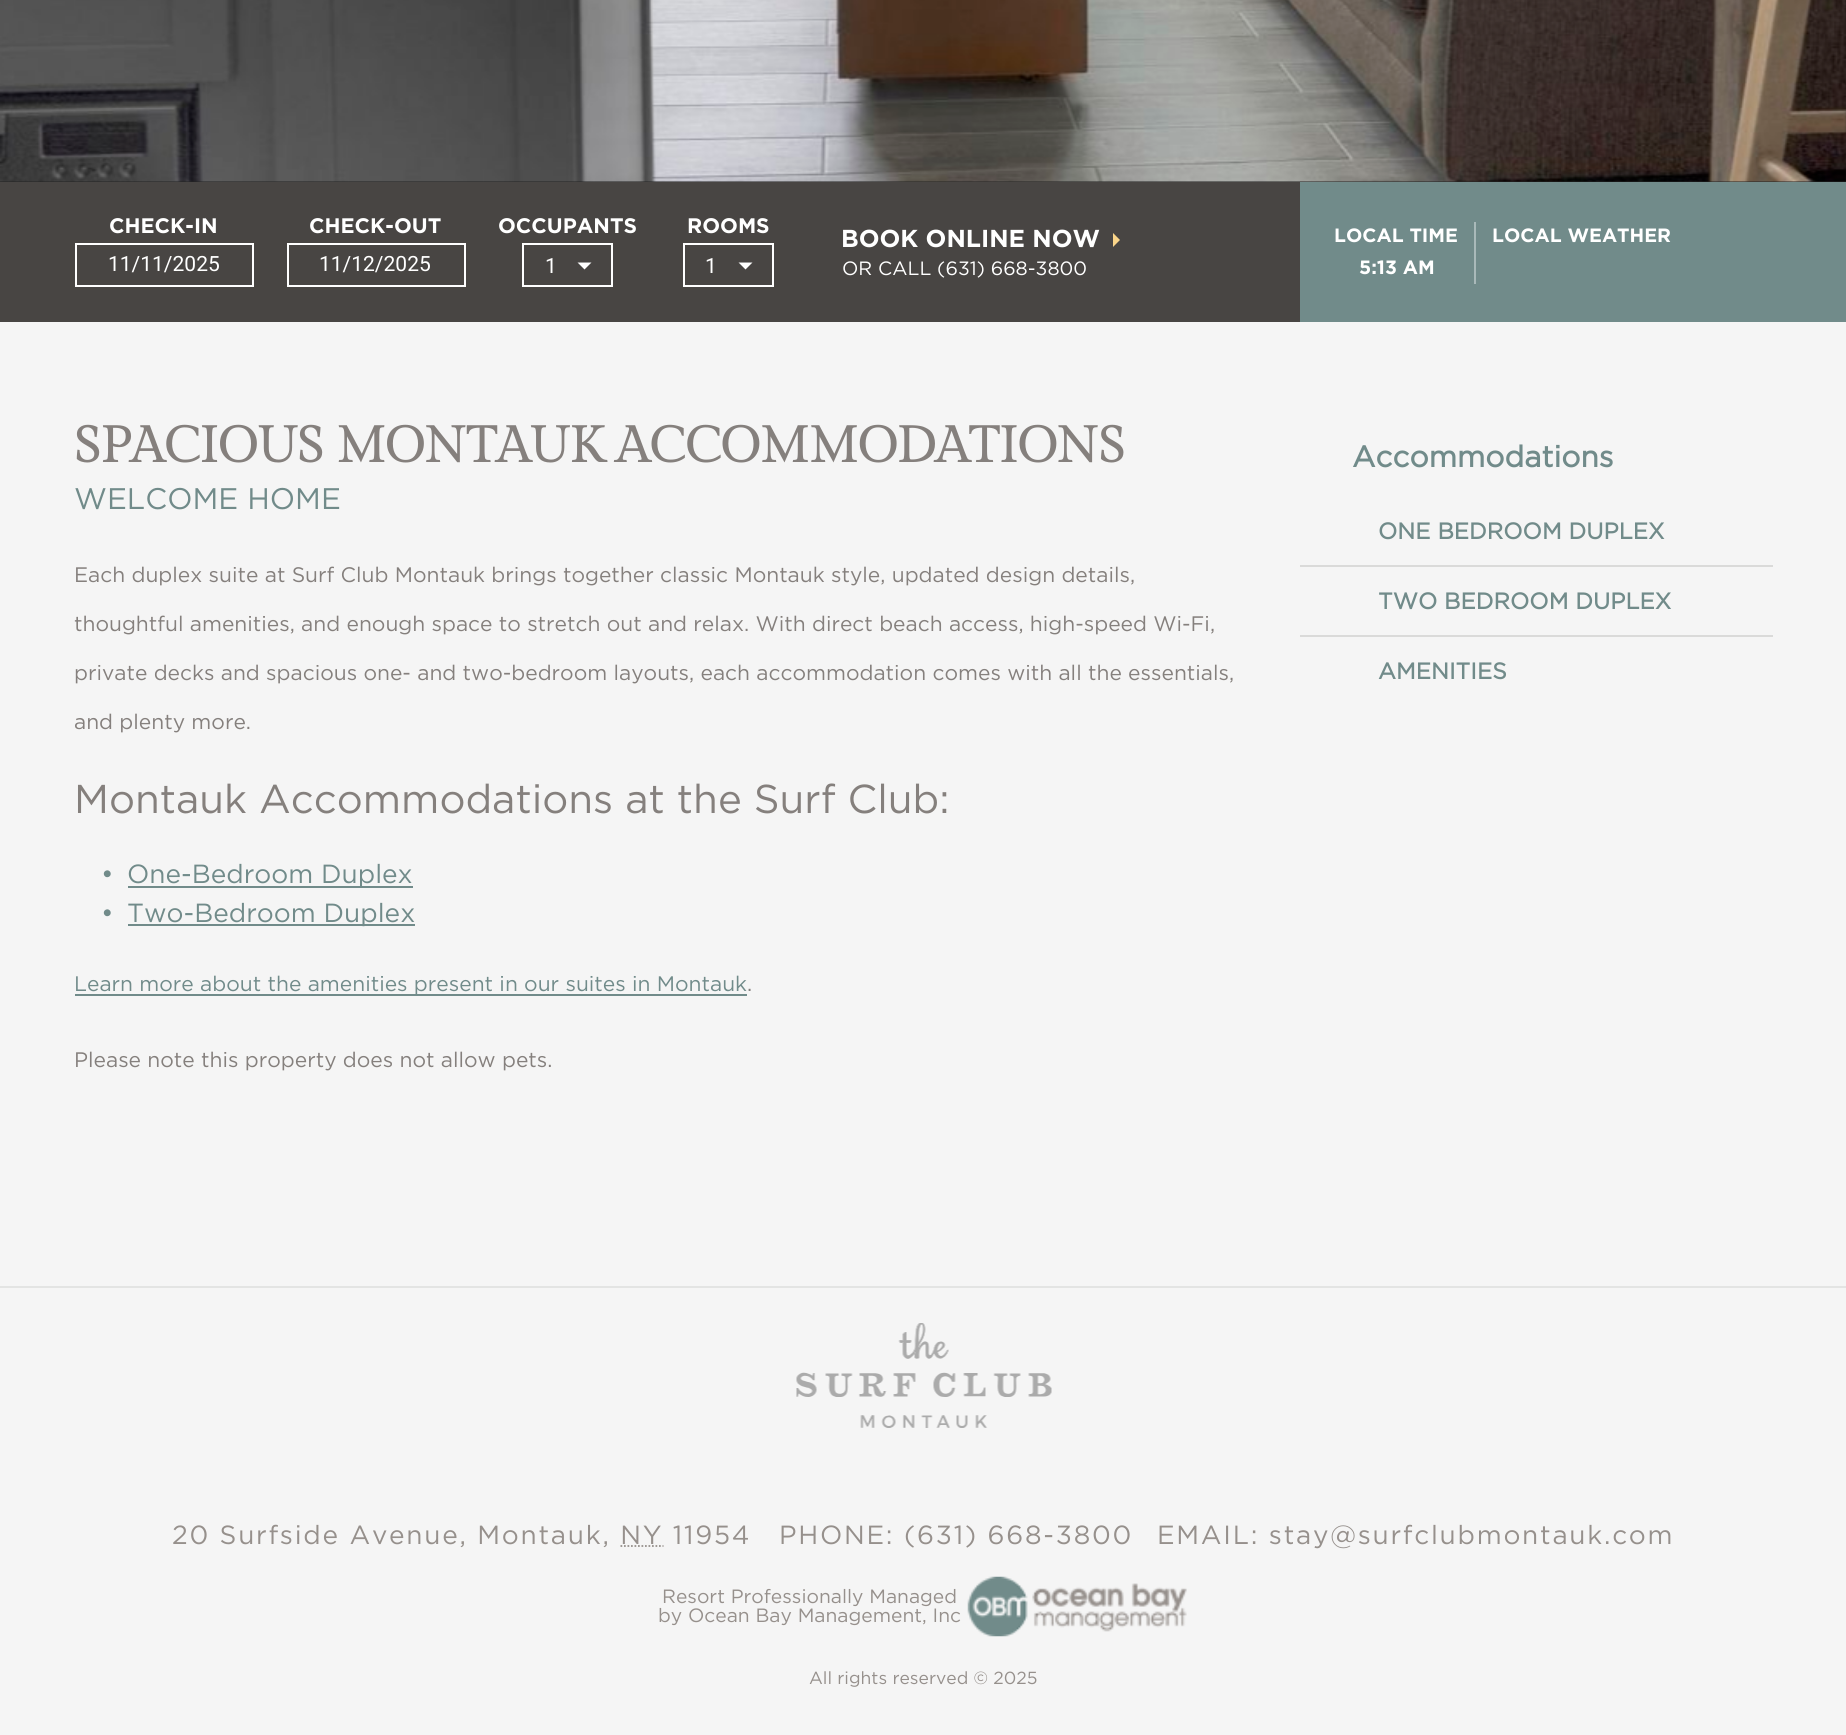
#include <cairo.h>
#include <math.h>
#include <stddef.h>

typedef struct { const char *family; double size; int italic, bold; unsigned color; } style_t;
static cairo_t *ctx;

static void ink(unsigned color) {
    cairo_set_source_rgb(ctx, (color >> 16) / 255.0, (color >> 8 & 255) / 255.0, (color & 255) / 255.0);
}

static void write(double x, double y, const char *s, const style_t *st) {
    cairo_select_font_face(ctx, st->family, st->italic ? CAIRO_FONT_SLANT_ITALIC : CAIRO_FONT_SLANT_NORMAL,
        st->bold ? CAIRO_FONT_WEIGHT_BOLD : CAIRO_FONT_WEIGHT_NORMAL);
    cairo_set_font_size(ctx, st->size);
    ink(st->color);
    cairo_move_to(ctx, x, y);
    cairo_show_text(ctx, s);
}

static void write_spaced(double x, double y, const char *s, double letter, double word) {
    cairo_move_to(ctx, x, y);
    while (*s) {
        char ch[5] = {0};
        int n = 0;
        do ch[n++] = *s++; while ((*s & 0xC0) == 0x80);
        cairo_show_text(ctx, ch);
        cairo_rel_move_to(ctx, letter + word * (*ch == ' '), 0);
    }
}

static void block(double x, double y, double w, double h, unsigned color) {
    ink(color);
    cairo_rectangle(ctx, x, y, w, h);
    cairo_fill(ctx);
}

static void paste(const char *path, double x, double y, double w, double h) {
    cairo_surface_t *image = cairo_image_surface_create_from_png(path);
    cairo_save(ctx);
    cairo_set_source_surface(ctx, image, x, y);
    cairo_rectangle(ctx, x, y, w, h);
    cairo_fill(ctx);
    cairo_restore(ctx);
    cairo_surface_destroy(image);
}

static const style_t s1 = {"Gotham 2", 21, 0, 1, 0xffffff};
static const style_t s2 = {"Roboto", 21, 0, 0, 0xffffff};
static const style_t s3 = {"Gotham 2", 24.5, 0, 1, 0xffffff};
static const style_t s4 = {"Gotham", 19.25, 0, 0, 0xffffff};
static const style_t s5 = {"Gotham 2", 19.25, 0, 1, 0xffffff};
static const style_t s6 = {"Gilda Display", 49, 0, 1, 0x85807d};
static const style_t s7 = {"Gotham", 29.75, 0, 0, 0x718b8a};
static const style_t s8 = {"Gotham", 21, 0, 0, 0x85807d};
static const style_t s9 = {"Gotham", 40.25, 0, 0, 0x85807d};
static const style_t s10 = {"Gotham", 26.25, 0, 0, 0x718b8a};
static const style_t s11 = {"Gotham", 21, 0, 0, 0x718b8a};
static const style_t s12 = {"Gotham", 29.75, 0, 1, 0x718b8a};
static const style_t s13 = {"Gotham", 22.75, 0, 1, 0x718b8a};
static const style_t s14 = {"Gotham", 19.25, 0, 0, 0x96908c};
static const style_t s15 = {"Gotham", 17.5, 0, 0, 0x96908c};

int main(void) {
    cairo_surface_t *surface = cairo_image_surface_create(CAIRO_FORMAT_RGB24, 1846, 1735);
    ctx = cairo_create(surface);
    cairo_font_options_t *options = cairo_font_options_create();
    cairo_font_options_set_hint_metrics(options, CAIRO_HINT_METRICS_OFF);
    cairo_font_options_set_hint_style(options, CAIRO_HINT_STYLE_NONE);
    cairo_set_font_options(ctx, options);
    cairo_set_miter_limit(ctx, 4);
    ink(0xf5f5f5);
    cairo_paint(ctx);
    block(0, 0, 1846, 182, 0x232323);
    paste("pic1.png", 0, 0, 1846, 182);
    block(0, 182, 1300, 140, 0x484543);
    block(1300, 182, 546, 140, 0x718b8a);
    write(109, 233, "CHECK-IN", &s1);
    cairo_rectangle(ctx, 76, 244, 177, 42);
    cairo_stroke(ctx);
    write(108, 271, "11/11/2025", &s2);
    write(309, 233, "CHECK-OUT", &s1);
    cairo_rectangle(ctx, 288, 244, 177, 42);
    cairo_stroke(ctx);
    write(319, 271, "11/12/2025", &s2);
    write(498, 233, "OCCUPANTS", &s1);
    cairo_rectangle(ctx, 523, 244, 89, 42);
    cairo_stroke(ctx);
    write(545, 273, "1", &s2);
    cairo_new_path(ctx);
    cairo_move_to(ctx, 577.5, 262.5);
    cairo_line_to(ctx, 591.5, 262.5);
    cairo_line_to(ctx, 584.5, 269.5);
    cairo_close_path(ctx);
    cairo_fill(ctx);
    write(687, 233, "ROOMS", &s1);
    cairo_rectangle(ctx, 684, 244, 89, 42);
    cairo_stroke(ctx);
    write(705, 273, "1", &s2);
    cairo_new_path(ctx);
    cairo_move_to(ctx, 738.5, 262.5);
    cairo_line_to(ctx, 752.5, 262.5);
    cairo_line_to(ctx, 745.5, 269.5);
    cairo_close_path(ctx);
    cairo_fill(ctx);
    write(841, 247, "BOOK ONLINE NOW", &s3);
    ink(0xfad58a);
    cairo_new_path(ctx);
    cairo_move_to(ctx, 1113, 247);
    cairo_line_to(ctx, 1113, 233);
    cairo_line_to(ctx, 1120, 240);
    cairo_close_path(ctx);
    cairo_fill(ctx);
    write(842, 275, "OR CALL (631) 668-3800", &s4);
    write(1334, 242, "LOCAL TIME", &s5);
    write(1359, 274, "5:13 AM", &s5);
    block(1474, 222, 2, 62, 0xa9b9b9);
    write(1492, 242, "LOCAL WEATHER", &s5);
    block(0, 1286, 1846, 2, 0xe3e4e3);
    write(74, 462, "SPACIOUS MONTAUK ACCOMMODATIONS", &s6);
    write(74, 509, "WELCOME HOME", &s7);
    write(74, 582, "Each duplex suite at Surf Club Montauk brings together classic Montauk style, updated design details,", &s8);
    write(74, 631, "thoughtful amenities, and enough space to stretch out and relax. With direct beach access, high-speed Wi-Fi,", &s8);
    write(74, 680, "private decks and spacious one- and two-bedroom layouts, each accommodation comes with all the essentials,", &s8);
    write(74, 729, "and plenty more.", &s8);
    write(74, 813, "Montauk Accommodations at the Surf Club:", &s9);
    write(101, 883, "•", &s10);
    block(128, 886, 285, 2, 0x718b8a);
    write(127, 883, "One-Bedroom Duplex", &s10);
    write(101, 922, "•", &s10);
    block(128, 924, 287, 2, 0x718b8a);
    write(127, 922, "Two-Bedroom Duplex", &s10);
    block(75, 994, 672, 2, 0x718b8a);
    write(74, 991, "Learn more about the amenities present in our suites in Montauk", &s11);
    write(747, 991, ".", &s8);
    write(74, 1067, "Please note this property does not allow pets.", &s8);
    write(1352, 467, "Accommodations", &s12);
    write(1378, 539, "ONE BEDROOM DUPLEX", &s13);
    block(1300, 565, 473, 2, 0xdadad9);
    write(1378, 609, "TWO BEDROOM DUPLEX", &s13);
    block(1300, 635, 473, 2, 0xdadad9);
    write(1378, 679, "AMENITIES", &s13);
    paste("pic2.png", 796, 1323, 256, 105);
    cairo_select_font_face(ctx, "Gotham", CAIRO_FONT_SLANT_NORMAL, CAIRO_FONT_WEIGHT_NORMAL);
    cairo_set_font_size(ctx, 26.25);
    ink(0x96908c);
    write_spaced(172, 1544, "20 Surfside Avenue, Montauk, NY 11954", 1.75, 0);
    cairo_new_path(ctx);
    cairo_move_to(ctx, 620.5, 1546);
    cairo_line_to(ctx, 663.5, 1546);
    cairo_set_line_width(ctx, 1.8);
    cairo_set_dash(ctx, (double[]){1.75, 1.75}, 2, 0);
    cairo_stroke(ctx);
    write_spaced(779, 1544, "PHONE: (631) 668-3800", 1.75, 0);
    write_spaced(1157, 1544, "EMAIL: stay@surfclubmontauk.com", 1.75, 0);
    paste("pic3.png", 967, 1576, 220, 61);
    write(662, 1603, "Resort Professionally Managed", &s14);
    write(658, 1622, "by Ocean Bay Management, Inc", &s14);
    write(809, 1684, "All rights reserved © 2025", &s15);
    cairo_surface_write_to_png(surface, "screenshot.png");
    cairo_font_options_destroy(options);
    cairo_destroy(ctx);
    cairo_surface_destroy(surface);
    return 0;
}
